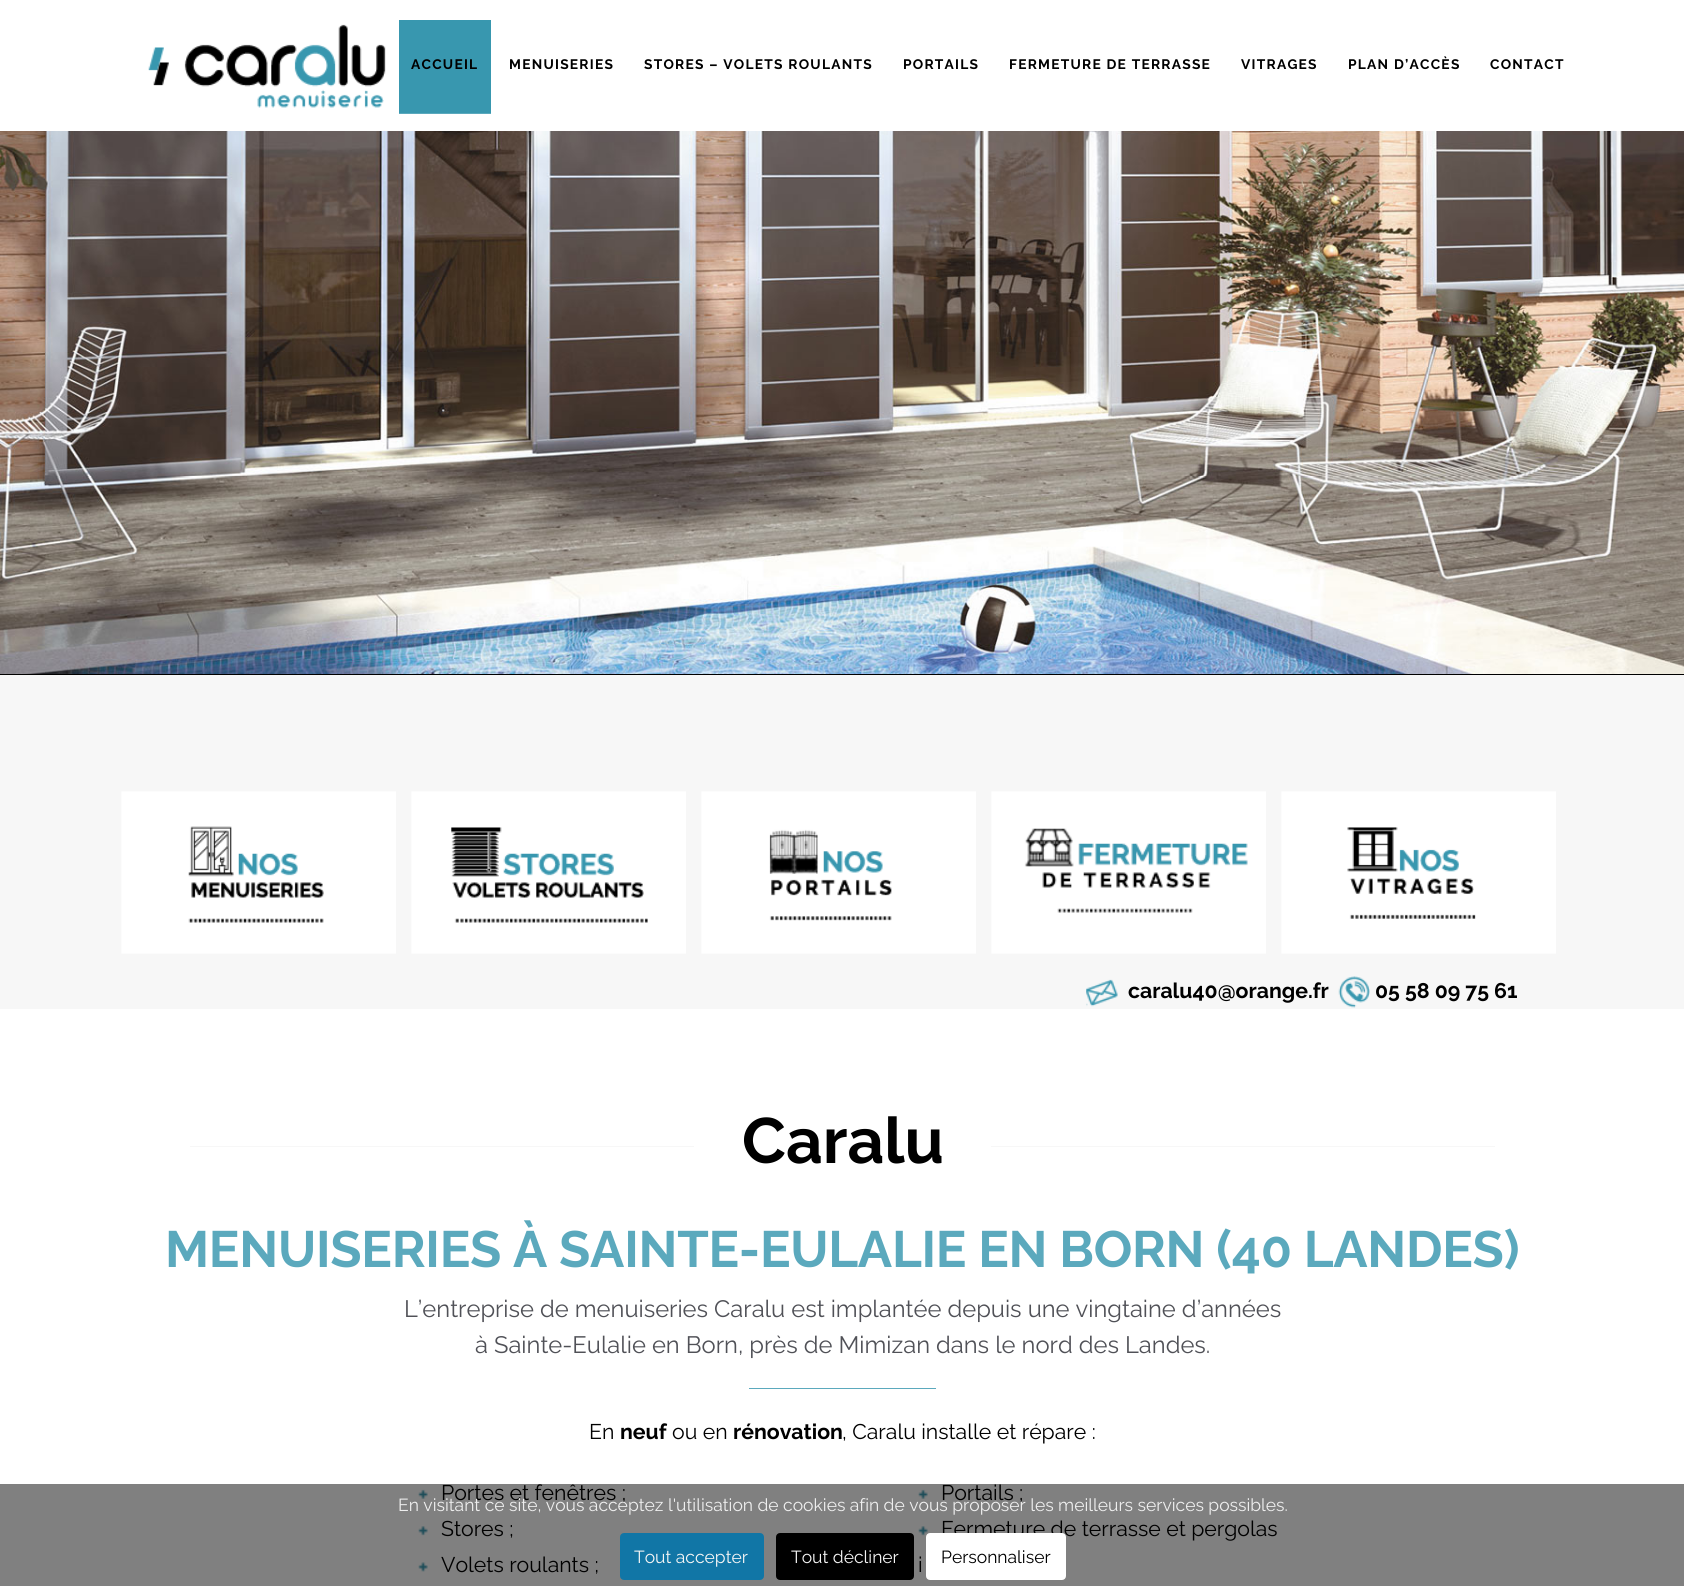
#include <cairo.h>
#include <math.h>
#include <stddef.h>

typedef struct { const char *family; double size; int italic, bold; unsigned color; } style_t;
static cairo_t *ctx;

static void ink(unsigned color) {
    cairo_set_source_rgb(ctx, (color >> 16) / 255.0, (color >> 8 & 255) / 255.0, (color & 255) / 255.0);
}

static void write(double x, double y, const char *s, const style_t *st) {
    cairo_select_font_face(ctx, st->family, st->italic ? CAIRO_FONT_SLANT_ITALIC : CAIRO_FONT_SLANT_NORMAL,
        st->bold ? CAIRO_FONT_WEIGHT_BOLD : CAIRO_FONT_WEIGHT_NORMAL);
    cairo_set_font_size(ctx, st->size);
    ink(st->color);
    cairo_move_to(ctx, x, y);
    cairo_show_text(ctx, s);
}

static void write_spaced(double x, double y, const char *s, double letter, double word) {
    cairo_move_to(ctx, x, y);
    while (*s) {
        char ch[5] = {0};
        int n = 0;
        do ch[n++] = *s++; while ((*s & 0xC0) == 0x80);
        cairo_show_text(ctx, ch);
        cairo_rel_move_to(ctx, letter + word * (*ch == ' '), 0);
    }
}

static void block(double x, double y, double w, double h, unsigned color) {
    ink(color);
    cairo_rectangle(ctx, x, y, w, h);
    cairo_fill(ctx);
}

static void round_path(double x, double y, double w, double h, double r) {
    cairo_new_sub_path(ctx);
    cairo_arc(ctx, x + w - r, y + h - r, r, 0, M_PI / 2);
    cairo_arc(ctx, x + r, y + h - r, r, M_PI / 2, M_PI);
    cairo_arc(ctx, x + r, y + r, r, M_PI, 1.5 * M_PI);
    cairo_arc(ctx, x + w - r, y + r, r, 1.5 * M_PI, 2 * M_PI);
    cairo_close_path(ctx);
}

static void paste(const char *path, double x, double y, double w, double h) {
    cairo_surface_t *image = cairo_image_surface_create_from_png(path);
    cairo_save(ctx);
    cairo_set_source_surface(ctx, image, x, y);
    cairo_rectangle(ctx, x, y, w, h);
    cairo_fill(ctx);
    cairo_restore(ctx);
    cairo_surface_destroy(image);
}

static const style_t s1 = {"Raleway", 21.25, 0, 1, 0x000000};
static const style_t s2 = {"Raleway", 64, 0, 1, 0x000000};
static const style_t s3 = {"Raleway", 23.75, 0, 0, 0x505157};
static const style_t s4 = {"Raleway", 21.25, 0, 0, 0x000000};
static const style_t s5 = {"Raleway", 17.5, 0, 0, 0xeeeeee};
static const style_t s6 = {"Raleway", 17.5, 0, 0, 0xf5f5f5};
static const style_t s7 = {"Raleway", 17.5, 0, 0, 0x000000};

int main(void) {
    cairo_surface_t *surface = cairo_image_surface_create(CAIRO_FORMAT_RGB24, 1684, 1586);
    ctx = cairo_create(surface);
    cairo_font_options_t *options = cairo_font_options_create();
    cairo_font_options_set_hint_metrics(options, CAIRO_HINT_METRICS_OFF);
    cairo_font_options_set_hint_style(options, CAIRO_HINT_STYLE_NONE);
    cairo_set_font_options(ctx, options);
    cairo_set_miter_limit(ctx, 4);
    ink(0xffffff);
    cairo_paint(ctx);
    block(0, 1484, 1684, 102, 0x808080);
    paste("pic1.png", 148, 24, 238, 84);
    block(399, 20, 92, 93, 0x3897af);
    block(399, 113, 92, 1, 0x5ba9bd);
    cairo_select_font_face(ctx, "Raleway", CAIRO_FONT_SLANT_NORMAL, CAIRO_FONT_WEIGHT_BOLD);
    cairo_set_font_size(ctx, 13.75);
    ink(0x000000);
    write_spaced(411, 69, "ACCUEIL", 1.25, 0);
    write_spaced(509, 69, "MENUISERIES", 1.25, 0);
    write_spaced(644, 69, "STORES – VOLETS ROULANTS", 1.25, 0);
    write_spaced(903, 69, "PORTAILS", 1.25, 0);
    write_spaced(1009, 69, "FERMETURE DE TERRASSE", 1.25, 0);
    write_spaced(1241, 69, "VITRAGES", 1.25, 0);
    write_spaced(1348, 69, "PLAN D’ACCÈS", 1.25, 0);
    write_spaced(1490, 69, "CONTACT", 1.25, 0);
    block(0, 675, 1684, 334, 0xf7f7f7);
    paste("pic2.png", 0, 131, 1684, 544);
    paste("pic3.png", 121, 791, 275, 163);
    paste("pic4.png", 411, 791, 275, 163);
    paste("pic5.png", 701, 791, 275, 163);
    paste("pic6.png", 991, 791, 275, 163);
    paste("pic7.png", 1281, 791, 275, 163);
    paste("pic8.png", 1086, 979, 32, 28);
    write(1128, 998, "caralu40@orange.fr", &s1);
    paste("pic9.png", 1338, 976, 32, 32);
    write(1375, 998, "05 58 09 75 61", &s1);
    block(190, 1146, 504, 1, 0xf7f7f7);
    write(742, 1163, "Caralu", &s2);
    block(991, 1146, 504, 1, 0xf7f7f7);
    cairo_set_font_size(ctx, 51);
    ink(0x5ba9bd);
    write_spaced(165, 1267, "MENUISERIES À SAINTE-EULALIE EN BORN (40 LANDES)", -0.25, 0);
    write(404, 1317, "L’entreprise de menuiseries Caralu est implantée depuis une vingtaine d’années", &s3);
    write(475, 1353, "à Sainte-Eulalie en Born, près de Mimizan dans le nord des Landes.", &s3);
    block(749, 1388, 187, 1, 0x5ba9bd);
    write(589, 1439, "En", &s4);
    write(620, 1439, "neuf", &s1);
    write(672, 1439, "ou en", &s4);
    write(733, 1439, "rénovation", &s1);
    write(842, 1439, ", Caralu installe et répare :", &s4);
    paste("pic10.png", 418, 1489, 10, 10);
    write(441, 1500, "Portes et fenêtres ;", &s4);
    paste("pic11.png", 418, 1526, 10, 10);
    write(441, 1536, "Stores ;", &s4);
    paste("pic12.png", 418, 1562, 10, 10);
    write(441, 1572, "Volets roulants ;", &s4);
    paste("pic10.png", 918, 1489, 10, 10);
    write(941, 1500, "Portails ;", &s4);
    paste("pic11.png", 918, 1526, 10, 10);
    write(941, 1536, "Fermeture de terrasse et pergolas", &s4);
    write(918, 1572, "i", &s4);
    write(398, 1511, "En visitant ce site, vous acceptez l'utilisation de cookies afin de vous proposer les meilleurs services possibles.", &s5);
    ink(0x1176a6);
    round_path(621.5, 1534.5, 141, 44, 2.5);
    cairo_fill_preserve(ctx);
    cairo_set_line_width(ctx, 3);
    cairo_stroke(ctx);
    write(634, 1563, "Tout accepter", &s6);
    ink(0x000000);
    round_path(777.5, 1534.5, 135, 44, 2.5);
    cairo_fill_preserve(ctx);
    cairo_stroke(ctx);
    write(791, 1563, "Tout décliner", &s6);
    ink(0xffffff);
    round_path(927.5, 1534.5, 137, 44, 2.5);
    cairo_fill_preserve(ctx);
    cairo_stroke(ctx);
    write(941, 1563, "Personnaliser", &s7);
    cairo_surface_write_to_png(surface, "screenshot.png");
    cairo_font_options_destroy(options);
    cairo_destroy(ctx);
    cairo_surface_destroy(surface);
    return 0;
}
